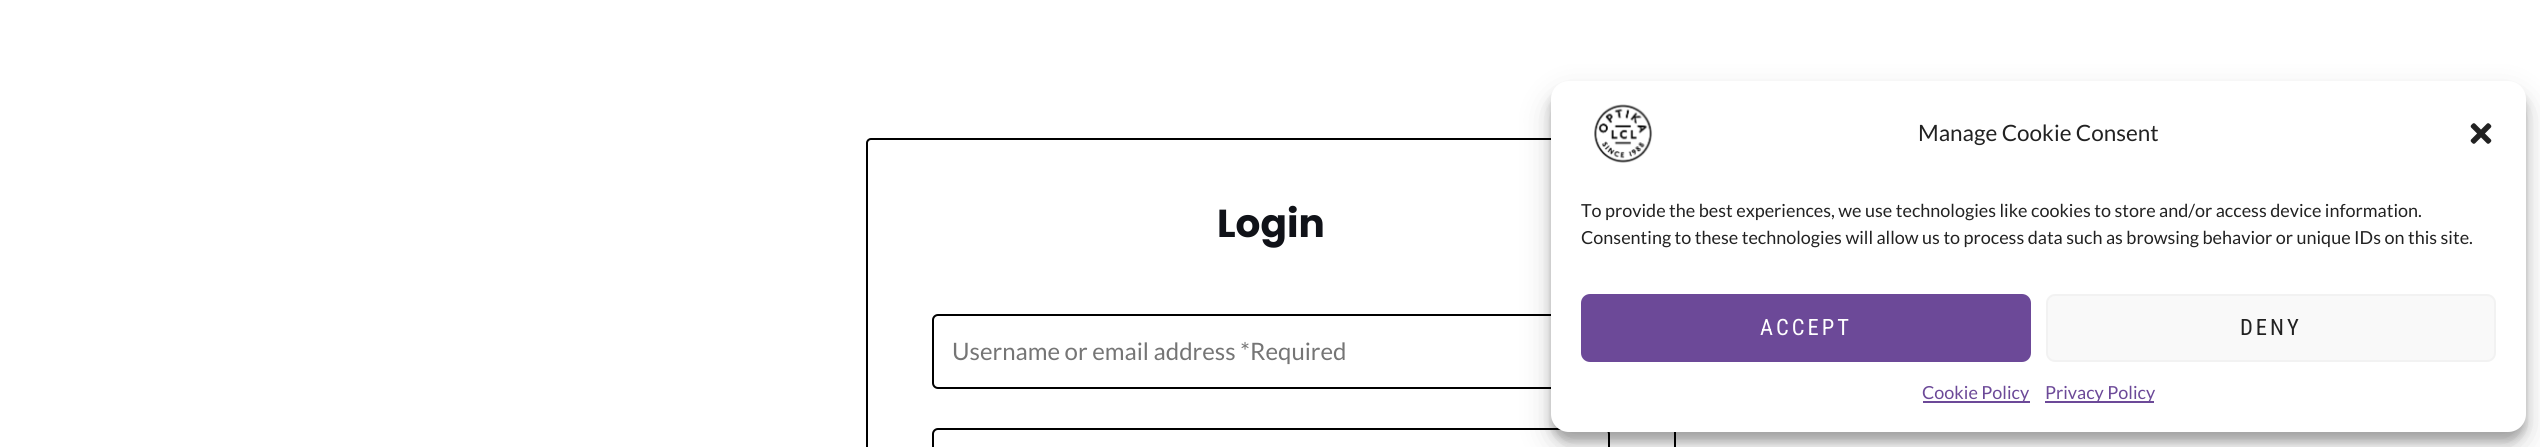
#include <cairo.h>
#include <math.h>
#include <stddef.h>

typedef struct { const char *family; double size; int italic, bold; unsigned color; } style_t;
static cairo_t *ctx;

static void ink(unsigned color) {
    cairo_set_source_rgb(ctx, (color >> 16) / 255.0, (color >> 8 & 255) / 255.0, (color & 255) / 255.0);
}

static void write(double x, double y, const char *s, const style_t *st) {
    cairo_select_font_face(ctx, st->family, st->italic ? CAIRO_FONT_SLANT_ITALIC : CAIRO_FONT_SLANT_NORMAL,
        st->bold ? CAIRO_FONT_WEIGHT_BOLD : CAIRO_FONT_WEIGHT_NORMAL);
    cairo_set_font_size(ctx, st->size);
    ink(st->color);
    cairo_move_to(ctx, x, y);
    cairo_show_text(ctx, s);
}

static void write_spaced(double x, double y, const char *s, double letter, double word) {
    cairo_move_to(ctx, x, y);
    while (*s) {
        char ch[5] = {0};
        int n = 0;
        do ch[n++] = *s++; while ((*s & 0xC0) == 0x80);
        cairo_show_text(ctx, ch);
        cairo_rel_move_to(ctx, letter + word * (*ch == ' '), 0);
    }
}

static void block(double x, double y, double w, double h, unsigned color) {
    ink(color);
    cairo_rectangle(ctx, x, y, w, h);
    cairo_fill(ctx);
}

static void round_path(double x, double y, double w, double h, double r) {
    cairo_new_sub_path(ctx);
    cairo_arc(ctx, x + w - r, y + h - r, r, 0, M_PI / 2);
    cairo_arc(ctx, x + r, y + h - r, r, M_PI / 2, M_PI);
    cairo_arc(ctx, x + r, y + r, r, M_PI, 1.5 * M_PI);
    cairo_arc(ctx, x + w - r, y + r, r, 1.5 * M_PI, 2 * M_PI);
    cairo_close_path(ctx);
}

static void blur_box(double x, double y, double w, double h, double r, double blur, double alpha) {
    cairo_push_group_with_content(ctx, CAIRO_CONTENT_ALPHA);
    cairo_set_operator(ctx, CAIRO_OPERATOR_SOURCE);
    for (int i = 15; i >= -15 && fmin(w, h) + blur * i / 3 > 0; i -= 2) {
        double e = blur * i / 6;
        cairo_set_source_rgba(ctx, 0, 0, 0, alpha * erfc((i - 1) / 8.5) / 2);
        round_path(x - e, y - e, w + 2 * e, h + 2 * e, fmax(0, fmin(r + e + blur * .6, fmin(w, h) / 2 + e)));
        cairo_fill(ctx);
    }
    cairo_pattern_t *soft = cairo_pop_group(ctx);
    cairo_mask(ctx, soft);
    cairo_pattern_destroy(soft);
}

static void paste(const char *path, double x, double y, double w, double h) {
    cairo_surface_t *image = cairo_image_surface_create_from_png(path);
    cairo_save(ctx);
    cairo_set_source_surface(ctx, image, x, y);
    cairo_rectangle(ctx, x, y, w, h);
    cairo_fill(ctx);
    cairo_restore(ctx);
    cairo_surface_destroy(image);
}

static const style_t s1 = {"Poppins", 39, 0, 1, 0x101218};
static const style_t s2 = {"Lato", 24, 0, 0, 0x757575};
static const style_t s3 = {"Lato", 22.5, 0, 0, 0x222222};
static const style_t s4 = {"Lato", 18, 0, 0, 0x222222};
static const style_t s5 = {"Lato", 18, 0, 0, 0x6c4998};

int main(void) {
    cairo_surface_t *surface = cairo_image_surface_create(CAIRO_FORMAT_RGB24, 2540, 447);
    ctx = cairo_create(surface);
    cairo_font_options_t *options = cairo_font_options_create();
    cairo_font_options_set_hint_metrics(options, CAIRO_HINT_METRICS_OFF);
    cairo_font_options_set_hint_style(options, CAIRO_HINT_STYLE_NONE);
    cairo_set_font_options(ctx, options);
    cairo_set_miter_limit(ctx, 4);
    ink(0xffffff);
    cairo_paint(ctx);
    round_path(867, 139, 808, 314, 4);
    ink(0x000000);
    cairo_stroke(ctx);
    write(1217, 237, "Login", &s1);
    round_path(933, 315, 676, 73, 5);
    ink(0x000000);
    cairo_stroke(ctx);
    write(952, 360, "Username or email address *Required", &s2);
    round_path(933, 429, 676, 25, 5);
    ink(0x000000);
    cairo_stroke(ctx);
    ink(0x000000);
    blur_box(1551, 90, 975, 351, 18, 4.5, 0.23);
    blur_box(1551, 96, 975, 351, 18, 15, 0.19);
    ink(0xffffff);
    round_path(1551, 81, 975, 351, 18);
    cairo_fill(ctx);
    paste("pic1.png", 1594, 104, 59, 59);
    write(1918, 141, "Manage Cookie Consent", &s3);
    paste("pic2.png", 2470, 123, 22, 21);
    write(1581, 217, "To provide the best experiences, we use technologies like cookies to store and/or access device information.", &s4);
    write(1581, 244, "Consenting to these technologies will allow us to process data such as browsing behavior or unique IDs on this site.", &s4);
    ink(0x6c4998);
    round_path(1582, 295, 448, 66, 8);
    cairo_fill_preserve(ctx);
    cairo_stroke(ctx);
    cairo_select_font_face(ctx, "Roboto Condensed", CAIRO_FONT_SLANT_NORMAL, CAIRO_FONT_WEIGHT_NORMAL);
    cairo_set_font_size(ctx, 22.5);
    ink(0xffffff);
    write_spaced(1760, 335, "ACCEPT", 3, 0);
    ink(0xf9f9f9);
    round_path(2047, 295, 448, 66, 8);
    cairo_fill_preserve(ctx);
    ink(0xf2f2f2);
    cairo_stroke(ctx);
    ink(0x222222);
    write_spaced(2240, 335, "DENY", 3, 0);
    block(1923, 401, 107, 2, 0x6c4998);
    write(1922, 399, "Cookie Policy", &s5);
    block(2045, 401, 109, 2, 0x6c4998);
    write(2045, 399, "Privacy Policy", &s5);
    cairo_surface_write_to_png(surface, "screenshot.png");
    cairo_font_options_destroy(options);
    cairo_destroy(ctx);
    cairo_surface_destroy(surface);
    return 0;
}
